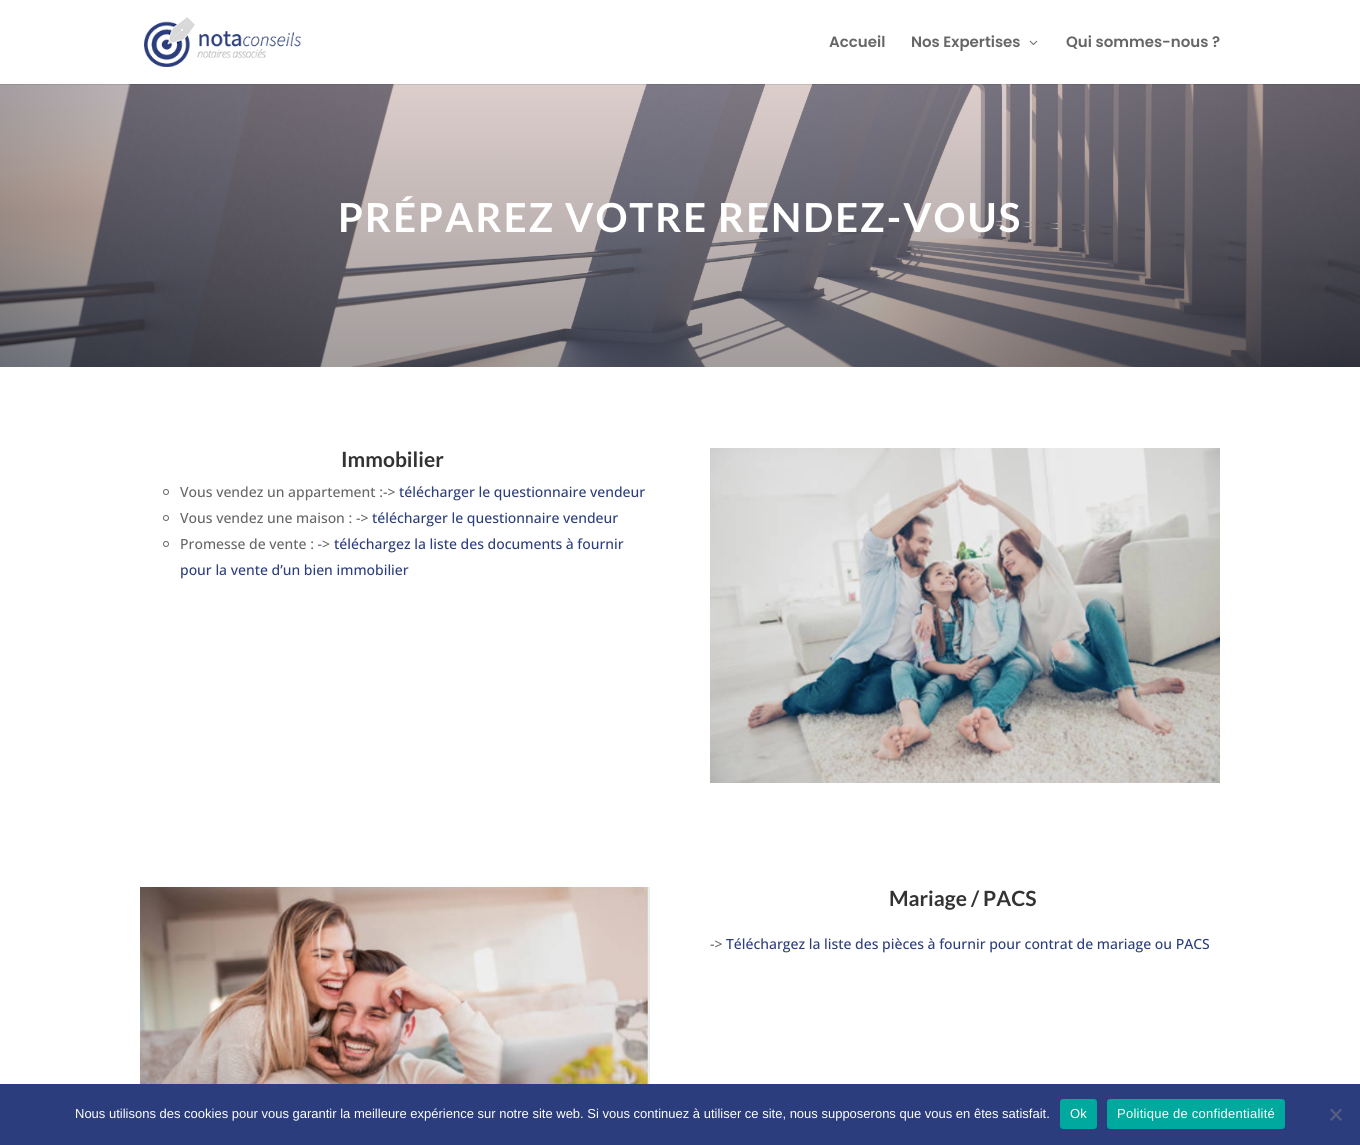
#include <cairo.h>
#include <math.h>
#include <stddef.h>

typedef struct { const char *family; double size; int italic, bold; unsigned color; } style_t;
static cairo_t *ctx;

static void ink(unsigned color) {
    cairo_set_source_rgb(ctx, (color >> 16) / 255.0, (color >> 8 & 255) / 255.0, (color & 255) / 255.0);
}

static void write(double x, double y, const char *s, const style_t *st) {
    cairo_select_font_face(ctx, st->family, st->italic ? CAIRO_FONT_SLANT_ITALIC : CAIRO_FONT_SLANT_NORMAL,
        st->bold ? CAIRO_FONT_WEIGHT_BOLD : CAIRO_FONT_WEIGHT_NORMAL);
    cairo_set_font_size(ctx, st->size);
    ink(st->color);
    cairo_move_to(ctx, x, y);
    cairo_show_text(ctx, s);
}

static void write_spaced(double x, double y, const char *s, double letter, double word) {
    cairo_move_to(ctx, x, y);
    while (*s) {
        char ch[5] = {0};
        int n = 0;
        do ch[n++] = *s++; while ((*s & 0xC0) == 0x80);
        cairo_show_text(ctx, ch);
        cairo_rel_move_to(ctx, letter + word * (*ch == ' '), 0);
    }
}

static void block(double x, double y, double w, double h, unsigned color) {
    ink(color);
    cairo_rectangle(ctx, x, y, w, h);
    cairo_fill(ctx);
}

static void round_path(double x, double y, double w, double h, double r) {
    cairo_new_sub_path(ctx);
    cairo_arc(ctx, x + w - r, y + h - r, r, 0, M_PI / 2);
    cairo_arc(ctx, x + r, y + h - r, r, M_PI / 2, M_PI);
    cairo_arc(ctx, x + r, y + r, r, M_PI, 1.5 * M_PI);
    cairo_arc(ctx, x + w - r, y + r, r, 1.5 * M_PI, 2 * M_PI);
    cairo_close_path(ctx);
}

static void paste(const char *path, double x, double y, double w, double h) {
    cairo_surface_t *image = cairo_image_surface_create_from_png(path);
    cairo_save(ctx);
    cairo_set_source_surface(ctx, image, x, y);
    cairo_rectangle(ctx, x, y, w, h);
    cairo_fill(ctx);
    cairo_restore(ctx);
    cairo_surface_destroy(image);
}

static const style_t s1 = {"Poppins SemiBold", 15, 0, 0, 0x666666};
static const style_t s2 = {"Lato", 21, 0, 1, 0x333333};
static const style_t s3 = {"Open Sans Medium", 14, 0, 0, 0x666666};
static const style_t s4 = {"Open Sans Medium", 14, 0, 0, 0x2b3d7d};
static const style_t s5 = {"Liberation Sans", 13, 0, 0, 0xffffff};

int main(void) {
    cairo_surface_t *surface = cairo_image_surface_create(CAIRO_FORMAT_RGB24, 1360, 1145);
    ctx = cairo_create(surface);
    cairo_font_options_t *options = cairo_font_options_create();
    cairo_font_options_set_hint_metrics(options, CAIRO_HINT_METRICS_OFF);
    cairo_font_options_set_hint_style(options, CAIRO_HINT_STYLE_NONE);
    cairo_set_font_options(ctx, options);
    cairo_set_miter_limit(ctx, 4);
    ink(0xffffff);
    cairo_paint(ctx);
    paste("pic3.png", 0, 84, 1360, 283);
    cairo_set_source_rgba(ctx, 0, 0, 0, 0.1);
    cairo_rectangle(ctx, 0, 84, 1360, 1);
    cairo_fill(ctx);
    paste("pic1.png", 144, 17, 157, 50);
    write(829, 47, "Accueil", &s1);
    write(911, 47, "Nos Expertises", &s1);
    paste("pic2.png", 1029, 40, 9, 5);
    write(1066, 47, "Qui sommes-nous ?", &s1);
    cairo_select_font_face(ctx, "Lato", CAIRO_FONT_SLANT_NORMAL, CAIRO_FONT_WEIGHT_BOLD);
    cairo_set_font_size(ctx, 40);
    ink(0xffffff);
    write_spaced(338, 232, "PRÉPAREZ VOTRE RENDEZ-VOUS", 2, 0);
    write(341, 467, "Immobilier", &s2);
    cairo_new_path(ctx);
    cairo_arc(ctx, 166, 492, 2.5, 0, 2 * M_PI);
    ink(0x666666);
    cairo_set_line_width(ctx, 1);
    cairo_stroke(ctx);
    write(180, 497, "Vous vendez un appartement :->", &s3);
    write(399, 497, "télécharger le questionnaire vendeur", &s4);
    cairo_new_path(ctx);
    cairo_arc(ctx, 166, 518, 2.5, 0, 2 * M_PI);
    ink(0x666666);
    cairo_stroke(ctx);
    write(180, 523, "Vous vendez une maison : ->", &s3);
    write(372, 523, "télécharger le questionnaire vendeur", &s4);
    cairo_new_path(ctx);
    cairo_arc(ctx, 166, 544, 2.5, 0, 2 * M_PI);
    ink(0x666666);
    cairo_stroke(ctx);
    write(180, 549, "Promesse de vente : ->", &s3);
    write(334, 549, "téléchargez la liste des documents à fournir", &s4);
    write(180, 575, "pour la vente d’un bien immobilier", &s4);
    paste("pic4.png", 710, 448, 510, 335);
    paste("pic5.png", 140, 887, 510, 197);
    write(889, 906, "Mariage / PACS", &s2);
    write(710, 949, "->", &s3);
    write(726, 949, "Téléchargez la liste des pièces à fournir pour contrat de mariage ou PACS", &s4);
    block(0, 1084, 1360, 61, 0x2b3d7d);
    write(75, 1118, "Nous utilisons des cookies pour vous garantir la meilleure expérience sur notre site web. Si vous continuez à utiliser ce site, nous supposerons que vous en êtes satisfait.", &s5);
    ink(0x00a99d);
    round_path(1060, 1099, 37, 30, 3);
    cairo_fill(ctx);
    ink(0xffffff);
    write_spaced(1070, 1118, "Ok", 0.25, 0);
    ink(0x00a99d);
    round_path(1107, 1099, 178, 30, 3);
    cairo_fill(ctx);
    ink(0xffffff);
    write_spaced(1117, 1118, "Politique de confidentialité", 0.25, 0);
    ink(0x565f7f);
    cairo_new_path(ctx);
    cairo_move_to(ctx, 1340.5, 1108.5);
    cairo_line_to(ctx, 1342, 1110);
    cairo_line_to(ctx, 1331.5, 1121);
    cairo_line_to(ctx, 1330, 1119.5);
    cairo_close_path(ctx);
    cairo_fill(ctx);
    cairo_new_path(ctx);
    cairo_move_to(ctx, 1330, 1110);
    cairo_line_to(ctx, 1331.5, 1108.5);
    cairo_line_to(ctx, 1342, 1119.5);
    cairo_line_to(ctx, 1340.5, 1121);
    cairo_close_path(ctx);
    cairo_fill(ctx);
    cairo_surface_write_to_png(surface, "screenshot.png");
    cairo_font_options_destroy(options);
    cairo_destroy(ctx);
    cairo_surface_destroy(surface);
    return 0;
}
